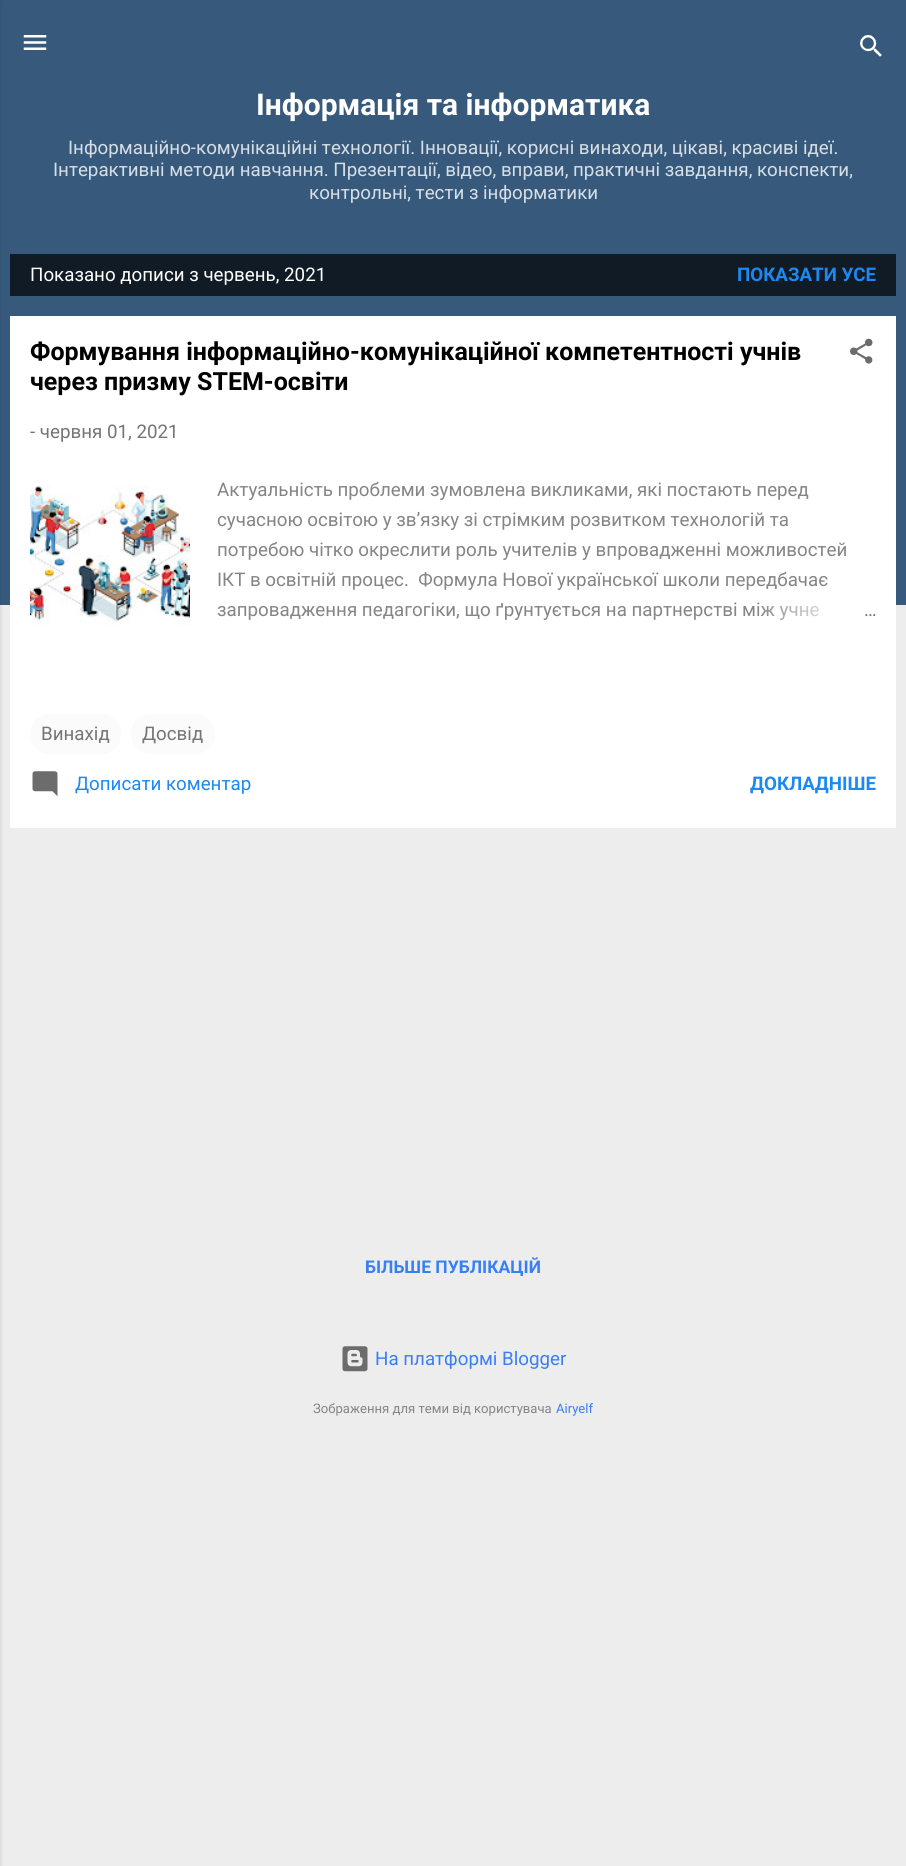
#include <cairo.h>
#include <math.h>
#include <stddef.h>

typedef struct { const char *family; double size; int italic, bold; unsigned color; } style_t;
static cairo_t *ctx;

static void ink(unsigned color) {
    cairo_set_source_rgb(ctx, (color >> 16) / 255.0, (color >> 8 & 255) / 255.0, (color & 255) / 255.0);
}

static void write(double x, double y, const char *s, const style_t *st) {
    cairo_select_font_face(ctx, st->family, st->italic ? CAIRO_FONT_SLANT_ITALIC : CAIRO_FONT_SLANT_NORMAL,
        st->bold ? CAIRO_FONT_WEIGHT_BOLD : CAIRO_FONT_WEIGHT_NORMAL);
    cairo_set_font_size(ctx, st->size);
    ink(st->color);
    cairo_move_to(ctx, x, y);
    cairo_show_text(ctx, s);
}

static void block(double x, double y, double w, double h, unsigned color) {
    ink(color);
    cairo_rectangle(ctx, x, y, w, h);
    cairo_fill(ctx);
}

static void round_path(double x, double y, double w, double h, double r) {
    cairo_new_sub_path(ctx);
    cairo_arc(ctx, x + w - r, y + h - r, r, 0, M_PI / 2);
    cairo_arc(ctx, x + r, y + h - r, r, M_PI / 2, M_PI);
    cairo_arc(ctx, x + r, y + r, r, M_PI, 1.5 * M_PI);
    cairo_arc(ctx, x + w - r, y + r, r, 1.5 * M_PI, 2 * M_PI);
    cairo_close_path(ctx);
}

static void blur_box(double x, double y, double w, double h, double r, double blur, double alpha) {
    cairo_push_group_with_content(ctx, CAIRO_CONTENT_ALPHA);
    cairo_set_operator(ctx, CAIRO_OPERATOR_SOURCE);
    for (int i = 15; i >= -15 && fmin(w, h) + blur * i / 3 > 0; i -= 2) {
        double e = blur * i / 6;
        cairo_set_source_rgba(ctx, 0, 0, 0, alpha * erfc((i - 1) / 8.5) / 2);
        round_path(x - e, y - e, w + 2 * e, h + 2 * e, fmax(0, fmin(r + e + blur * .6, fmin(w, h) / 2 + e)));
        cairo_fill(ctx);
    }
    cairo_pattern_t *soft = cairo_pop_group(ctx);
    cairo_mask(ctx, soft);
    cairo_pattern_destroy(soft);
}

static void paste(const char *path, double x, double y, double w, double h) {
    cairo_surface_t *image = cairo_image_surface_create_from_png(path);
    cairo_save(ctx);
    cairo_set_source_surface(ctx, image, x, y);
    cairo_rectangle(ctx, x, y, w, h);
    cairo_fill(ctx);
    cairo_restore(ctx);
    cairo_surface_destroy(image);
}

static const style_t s1 = {"Roboto", 30, 0, 1, 0xffffff};
static const style_t s2 = {"Roboto", 18.75, 0, 0, 0xd7dee5};
static const style_t s3 = {"Roboto", 18.75, 0, 0, 0xffffff};
static const style_t s4 = {"Roboto", 18.75, 0, 1, 0x1c89f2};
static const style_t s5 = {"Roboto", 25, 0, 1, 0x000000};
static const style_t s6 = {"Roboto", 18.75, 0, 0, 0x757575};
static const style_t s7 = {"Roboto", 18.75, 0, 0, 0x858585};
static const style_t s8 = {"Roboto", 18.75, 0, 0, 0x1c89f2};
static const style_t s9 = {"Roboto", 17.5, 0, 1, 0x387ff4};
static const style_t s10 = {"Roboto", 18.75, 0, 0, 0x387ff4};
static const style_t s11 = {"Roboto", 13.1, 0, 0, 0x858585};
static const style_t s12 = {"Roboto", 13.1, 0, 0, 0x387ff4};

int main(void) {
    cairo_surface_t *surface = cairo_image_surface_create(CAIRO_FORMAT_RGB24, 906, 1866);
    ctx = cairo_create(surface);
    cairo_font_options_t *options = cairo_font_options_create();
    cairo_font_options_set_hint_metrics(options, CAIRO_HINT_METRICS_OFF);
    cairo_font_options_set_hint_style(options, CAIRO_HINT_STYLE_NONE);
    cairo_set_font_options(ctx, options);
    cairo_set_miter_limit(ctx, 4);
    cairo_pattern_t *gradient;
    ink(0xededed);
    cairo_paint(ctx);
    block(0, 0, 906, 605, 0x375a7c);
    ink(0x000000);
    blur_box(-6, 1, 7, 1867, 0, 2, 0.1);
    paste("pic1.png", 23, 35, 24, 15);
    paste("pic2.png", 860, 35, 22, 22);
    write(256, 115, "Інформація та інформатика", &s1);
    write(68, 154, "Інформаційно-комунікаційні технології. Інновації, корисні винаходи, цікаві, красиві ідеї.", &s2);
    write(53, 176, "Інтерактивні методи навчання. Презентації, відео, вправи, практичні завдання, конспекти,", &s2);
    write(309, 199, "контрольні, тести з інформатики", &s2);
    block(10, 254, 886, 42, 0x111b25);
    write(30, 281, "Показано дописи з червень, 2021", &s3);
    write(737, 281, "ПОКАЗАТИ УСЕ", &s4);
    block(10, 316, 886, 512, 0xffffff);
    write(30, 360, "Формування інформаційно-комунікаційної компетентності учнів", &s5);
    write(30, 390, "через призму STEM-освіти", &s5);
    paste("pic3.png", 850, 338, 23, 26);
    write(30, 438, "- червня 01, 2021", &s6);
    paste("pic4.png", 30, 485, 160, 140);
    write(217, 496, "Актуальність проблеми зумовлена викликами, які постають перед", &s7);
    write(217, 526, "сучасною освітою у зв’язку зі стрімким розвитком технологій та", &s7);
    write(217, 556, "потребою чітко окреслити роль учителів у впровадженні можливостей", &s7);
    write(217, 586, "ІКТ в освітній процес.  Формула Нової української школи передбачає", &s7);
    write(217, 616, "запровадження педагогіки, що ґрунтується на партнерстві між учне", &s7);
    gradient = cairo_pattern_create_linear(876, 610, 756, 610);
    cairo_pattern_add_color_stop_rgba(gradient, 0, 1, 1, 1, 1);
    cairo_pattern_add_color_stop_rgba(gradient, 0.2, 1, 1, 1, 1);
    cairo_pattern_add_color_stop_rgba(gradient, 1, 1, 1, 1, 0);
    cairo_set_source(ctx, gradient);
    cairo_pattern_destroy(gradient);
    cairo_rectangle(ctx, 758, 603, 61, 17);
    cairo_fill(ctx);
    write(864, 616, "…", &s6);
    ink(0xfbfbfb);
    round_path(30, 714, 91, 40, 19);
    cairo_fill(ctx);
    write(41, 740, "Винахід", &s6);
    ink(0xfbfbfb);
    round_path(131, 714, 84, 40, 19);
    cairo_fill(ctx);
    write(142, 740, "Досвід", &s6);
    paste("pic5.png", 32, 771, 26, 25);
    write(75, 790, "Дописати коментар", &s8);
    write(750, 790, "ДОКЛАДНІШЕ", &s4);
    write(365, 1273, "БІЛЬШЕ ПУБЛІКАЦІЙ", &s9);
    paste("pic6.png", 342, 1346, 26, 26);
    write(375, 1365, "На платформі Blogger", &s10);
    write(313, 1413, "Зображення для теми від користувача", &s11);
    write(556, 1413, "Airyelf", &s12);
    cairo_surface_write_to_png(surface, "screenshot.png");
    cairo_font_options_destroy(options);
    cairo_destroy(ctx);
    cairo_surface_destroy(surface);
    return 0;
}
